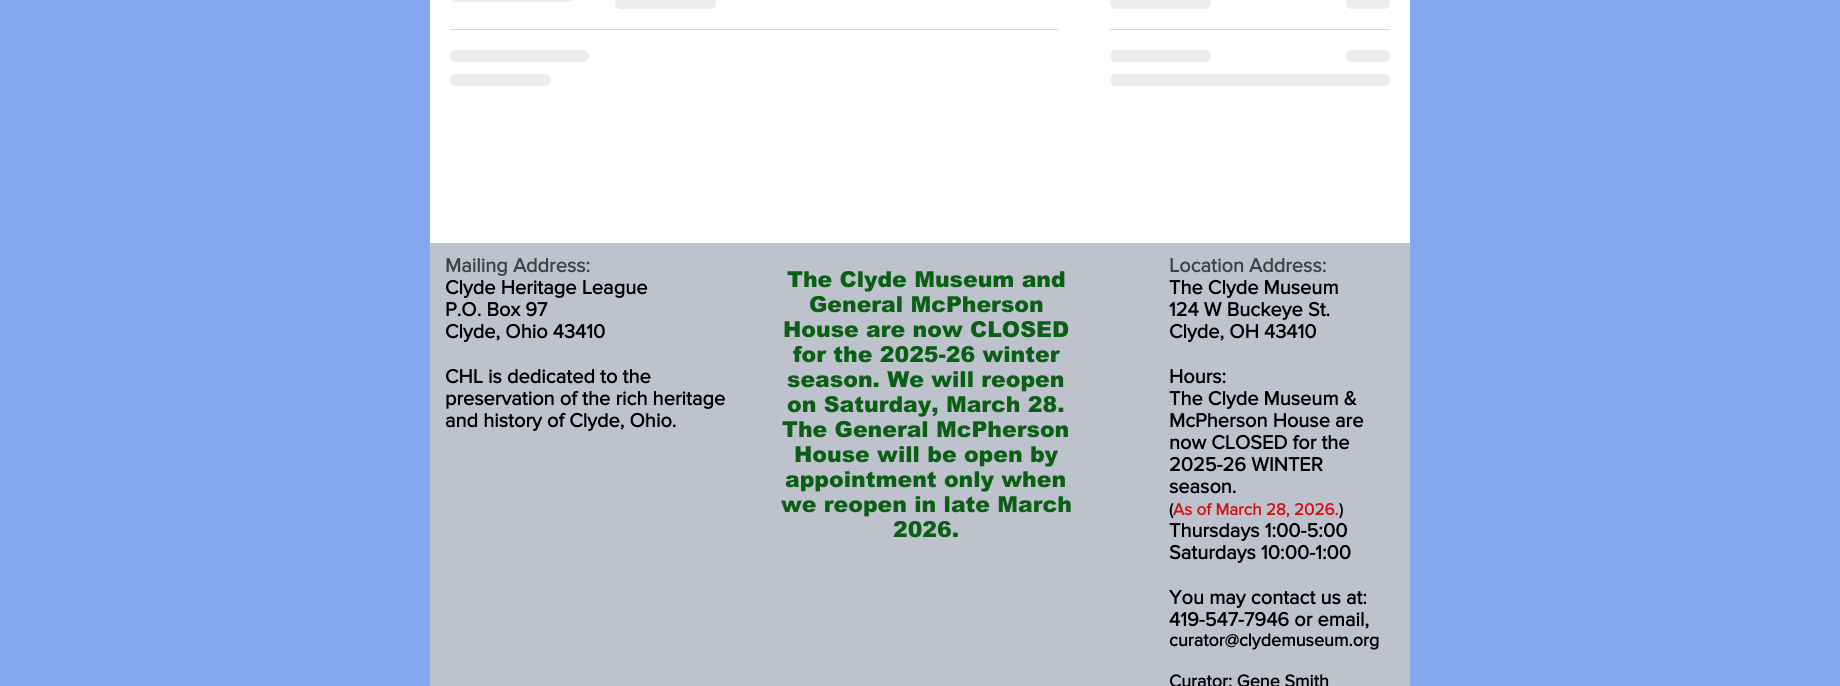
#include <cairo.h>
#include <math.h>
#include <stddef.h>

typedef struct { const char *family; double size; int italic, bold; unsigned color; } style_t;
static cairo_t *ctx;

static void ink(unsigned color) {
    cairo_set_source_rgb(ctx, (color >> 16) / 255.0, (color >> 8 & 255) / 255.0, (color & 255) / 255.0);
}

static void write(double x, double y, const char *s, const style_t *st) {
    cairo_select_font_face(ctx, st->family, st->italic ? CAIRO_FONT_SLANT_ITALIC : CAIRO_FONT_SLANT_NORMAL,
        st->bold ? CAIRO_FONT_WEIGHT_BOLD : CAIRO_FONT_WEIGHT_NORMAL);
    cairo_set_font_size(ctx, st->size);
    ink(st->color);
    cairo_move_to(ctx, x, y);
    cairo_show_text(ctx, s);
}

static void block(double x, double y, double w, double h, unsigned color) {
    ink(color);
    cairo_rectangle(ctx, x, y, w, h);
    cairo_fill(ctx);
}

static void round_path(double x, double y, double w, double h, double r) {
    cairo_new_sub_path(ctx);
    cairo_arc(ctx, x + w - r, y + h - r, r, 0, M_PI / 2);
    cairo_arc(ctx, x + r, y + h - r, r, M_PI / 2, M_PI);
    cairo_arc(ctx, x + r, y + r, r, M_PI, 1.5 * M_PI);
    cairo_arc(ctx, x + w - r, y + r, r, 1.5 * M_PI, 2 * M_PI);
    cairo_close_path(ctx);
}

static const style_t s1 = {"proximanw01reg", 20, 0, 1, 0x414141};
static const style_t s2 = {"proximanw01reg", 20, 0, 1, 0x000000};
static const style_t s3 = {"arial Black", 22, 0, 0, 0x0a5f14};
static const style_t s4 = {"proximanw01reg", 17, 0, 1, 0x000000};
static const style_t s5 = {"proximanw01reg", 17, 0, 1, 0xd11111};
static const style_t s6 = {"proximanw01reg", 18, 0, 1, 0x000000};

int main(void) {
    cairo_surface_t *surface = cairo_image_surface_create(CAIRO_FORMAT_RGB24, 1840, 686);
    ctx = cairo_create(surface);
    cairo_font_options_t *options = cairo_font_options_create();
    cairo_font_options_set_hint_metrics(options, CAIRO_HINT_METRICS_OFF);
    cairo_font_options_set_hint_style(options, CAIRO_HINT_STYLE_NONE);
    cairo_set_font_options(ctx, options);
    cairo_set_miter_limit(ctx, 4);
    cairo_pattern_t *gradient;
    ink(0x83a8f0);
    cairo_paint(ctx);
    block(430, 0, 980, 243, 0xffffff);
    gradient = cairo_pattern_create_linear(450, -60, 950, -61);
    cairo_pattern_add_color_stop_rgba(gradient, 0.25, 0.925, 0.925, 0.925, 1);
    cairo_pattern_add_color_stop_rgba(gradient, 0.37, 0.851, 0.851, 0.851, 1);
    cairo_pattern_add_color_stop_rgba(gradient, 0.63, 0.925, 0.925, 0.925, 1);
    cairo_set_source(ctx, gradient);
    cairo_pattern_destroy(gradient);
    round_path(450, -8, 125, 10, 8);
    cairo_fill(ctx);
    gradient = cairo_pattern_create_linear(615, 3, 1019, 3);
    cairo_pattern_add_color_stop_rgba(gradient, 0.25, 0.925, 0.925, 0.925, 1);
    cairo_pattern_add_color_stop_rgba(gradient, 0.37, 0.851, 0.851, 0.851, 1);
    cairo_pattern_add_color_stop_rgba(gradient, 0.63, 0.925, 0.925, 0.925, 1);
    cairo_set_source(ctx, gradient);
    cairo_pattern_destroy(gradient);
    round_path(615, -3, 101, 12, 6);
    cairo_fill(ctx);
    block(450, 29, 608, 1, 0xd9d9d9);
    gradient = cairo_pattern_create_linear(450, 56, 1006, 56);
    cairo_pattern_add_color_stop_rgba(gradient, 0.25, 0.925, 0.925, 0.925, 1);
    cairo_pattern_add_color_stop_rgba(gradient, 0.37, 0.851, 0.851, 0.851, 1);
    cairo_pattern_add_color_stop_rgba(gradient, 0.63, 0.925, 0.925, 0.925, 1);
    cairo_set_source(ctx, gradient);
    cairo_pattern_destroy(gradient);
    round_path(450, 50, 139, 12, 6);
    cairo_fill(ctx);
    gradient = cairo_pattern_create_linear(450, 80, 854, 80);
    cairo_pattern_add_color_stop_rgba(gradient, 0.25, 0.925, 0.925, 0.925, 1);
    cairo_pattern_add_color_stop_rgba(gradient, 0.37, 0.851, 0.851, 0.851, 1);
    cairo_pattern_add_color_stop_rgba(gradient, 0.63, 0.925, 0.925, 0.925, 1);
    cairo_set_source(ctx, gradient);
    cairo_pattern_destroy(gradient);
    round_path(450, 74, 101, 12, 6);
    cairo_fill(ctx);
    gradient = cairo_pattern_create_linear(1110, 3, 1514, 3);
    cairo_pattern_add_color_stop_rgba(gradient, 0.25, 0.925, 0.925, 0.925, 1);
    cairo_pattern_add_color_stop_rgba(gradient, 0.37, 0.851, 0.851, 0.851, 1);
    cairo_pattern_add_color_stop_rgba(gradient, 0.63, 0.925, 0.925, 0.925, 1);
    cairo_set_source(ctx, gradient);
    cairo_pattern_destroy(gradient);
    round_path(1110, -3, 101, 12, 6);
    cairo_fill(ctx);
    gradient = cairo_pattern_create_linear(1346, 3, 1522, 3);
    cairo_pattern_add_color_stop_rgba(gradient, 0.25, 0.925, 0.925, 0.925, 1);
    cairo_pattern_add_color_stop_rgba(gradient, 0.37, 0.851, 0.851, 0.851, 1);
    cairo_pattern_add_color_stop_rgba(gradient, 0.63, 0.925, 0.925, 0.925, 1);
    cairo_set_source(ctx, gradient);
    cairo_pattern_destroy(gradient);
    round_path(1346, -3, 44, 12, 6);
    cairo_fill(ctx);
    block(1110, 29, 280, 1, 0xd9d9d9);
    gradient = cairo_pattern_create_linear(1110, 56, 1514, 56);
    cairo_pattern_add_color_stop_rgba(gradient, 0.25, 0.925, 0.925, 0.925, 1);
    cairo_pattern_add_color_stop_rgba(gradient, 0.37, 0.851, 0.851, 0.851, 1);
    cairo_pattern_add_color_stop_rgba(gradient, 0.63, 0.925, 0.925, 0.925, 1);
    cairo_set_source(ctx, gradient);
    cairo_pattern_destroy(gradient);
    round_path(1110, 50, 101, 12, 6);
    cairo_fill(ctx);
    gradient = cairo_pattern_create_linear(1346, 56, 1522, 56);
    cairo_pattern_add_color_stop_rgba(gradient, 0.25, 0.925, 0.925, 0.925, 1);
    cairo_pattern_add_color_stop_rgba(gradient, 0.37, 0.851, 0.851, 0.851, 1);
    cairo_pattern_add_color_stop_rgba(gradient, 0.63, 0.925, 0.925, 0.925, 1);
    cairo_set_source(ctx, gradient);
    cairo_pattern_destroy(gradient);
    round_path(1346, 50, 44, 12, 6);
    cairo_fill(ctx);
    gradient = cairo_pattern_create_linear(1110, 80, 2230, 80);
    cairo_pattern_add_color_stop_rgba(gradient, 0.25, 0.925, 0.925, 0.925, 1);
    cairo_pattern_add_color_stop_rgba(gradient, 0.37, 0.851, 0.851, 0.851, 1);
    cairo_pattern_add_color_stop_rgba(gradient, 0.63, 0.925, 0.925, 0.925, 1);
    cairo_set_source(ctx, gradient);
    cairo_pattern_destroy(gradient);
    round_path(1110, 74, 280, 12, 6);
    cairo_fill(ctx);
    block(430, 243, 980, 443, 0xbdc2cd);
    write(445, 272, "Mailing Address:", &s1);
    write(445, 294, "Clyde Heritage League", &s2);
    write(445, 316, "P.O. Box 97", &s2);
    write(445, 338, "Clyde, Ohio 43410", &s2);
    write(445, 383, "CHL is dedicated to the", &s2);
    write(445, 405, "preservation of the rich heritage", &s2);
    write(445, 427, "and history of Clyde, Ohio.", &s2);
    write(787, 287, "The Clyde Museum and", &s3);
    write(809, 312, "General McPherson", &s3);
    write(783, 337, "House are now CLOSED", &s3);
    write(793, 362, "for the 2025-26 winter", &s3);
    write(787, 387, "season. We will reopen", &s3);
    write(787, 412, "on Saturday, March 28.", &s3);
    write(782, 437, "The General McPherson", &s3);
    write(794, 462, "House will be open by", &s3);
    write(785, 487, "appointment only when", &s3);
    write(781, 512, "we reopen in late March", &s3);
    write(893, 537, "2026.", &s3);
    write(1169, 272, "Location Address:", &s1);
    write(1169, 294, "The Clyde Museum", &s2);
    write(1169, 316, "124 W Buckeye St.", &s2);
    write(1169, 338, "Clyde, OH 43410", &s2);
    write(1169, 383, "Hours:", &s2);
    write(1169, 405, "The Clyde Museum &", &s2);
    write(1169, 427, "McPherson House are", &s2);
    write(1169, 449, "now CLOSED for the", &s2);
    write(1169, 471, "2025-26 WINTER", &s2);
    write(1169, 493, "season.", &s2);
    write(1169, 515, "(", &s4);
    write(1173, 515, "As of March 28, 2026.", &s5);
    write(1339, 515, ")", &s4);
    write(1169, 537, "Thursdays 1:00-5:00", &s2);
    write(1169, 559, "Saturdays 10:00-1:00", &s2);
    write(1169, 604, "You may contact us at:", &s2);
    write(1169, 626, "419-547-7946 or email,", &s2);
    write(1169, 646, "curator@clydemuseum.org", &s6);
    write(1169, 687, "Curator: Gene Smith", &s6);
    cairo_surface_write_to_png(surface, "screenshot.png");
    cairo_font_options_destroy(options);
    cairo_destroy(ctx);
    cairo_surface_destroy(surface);
    return 0;
}
